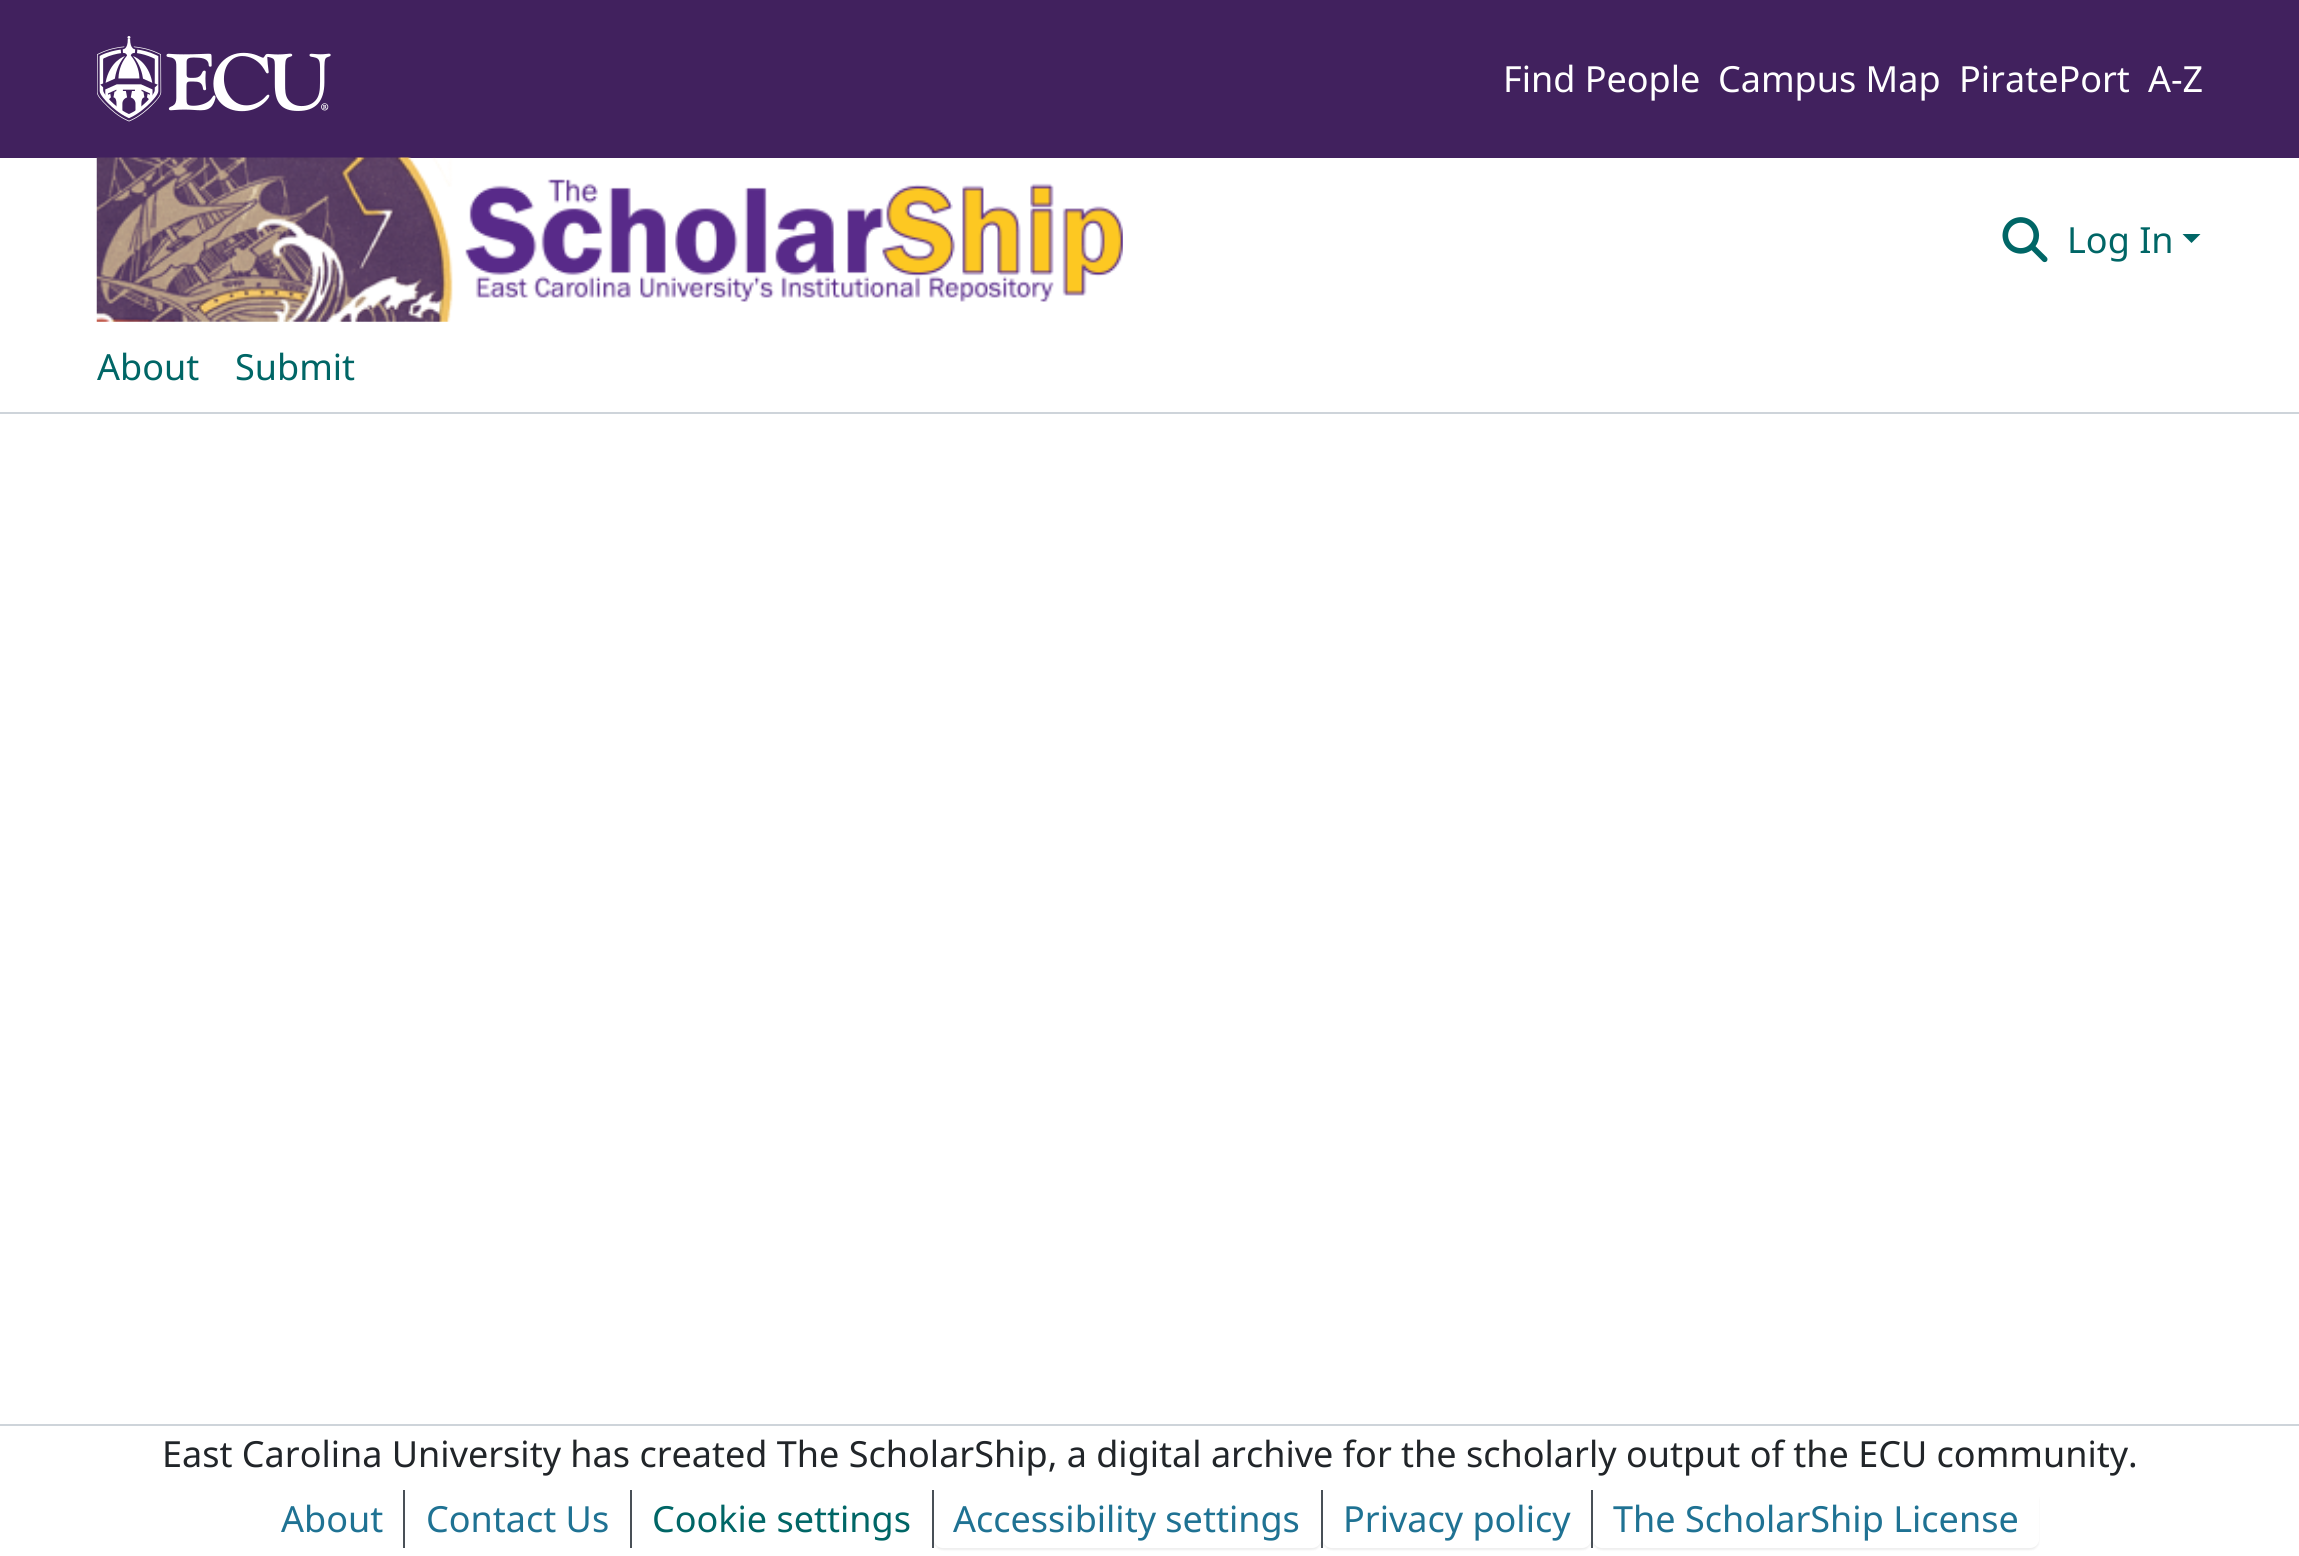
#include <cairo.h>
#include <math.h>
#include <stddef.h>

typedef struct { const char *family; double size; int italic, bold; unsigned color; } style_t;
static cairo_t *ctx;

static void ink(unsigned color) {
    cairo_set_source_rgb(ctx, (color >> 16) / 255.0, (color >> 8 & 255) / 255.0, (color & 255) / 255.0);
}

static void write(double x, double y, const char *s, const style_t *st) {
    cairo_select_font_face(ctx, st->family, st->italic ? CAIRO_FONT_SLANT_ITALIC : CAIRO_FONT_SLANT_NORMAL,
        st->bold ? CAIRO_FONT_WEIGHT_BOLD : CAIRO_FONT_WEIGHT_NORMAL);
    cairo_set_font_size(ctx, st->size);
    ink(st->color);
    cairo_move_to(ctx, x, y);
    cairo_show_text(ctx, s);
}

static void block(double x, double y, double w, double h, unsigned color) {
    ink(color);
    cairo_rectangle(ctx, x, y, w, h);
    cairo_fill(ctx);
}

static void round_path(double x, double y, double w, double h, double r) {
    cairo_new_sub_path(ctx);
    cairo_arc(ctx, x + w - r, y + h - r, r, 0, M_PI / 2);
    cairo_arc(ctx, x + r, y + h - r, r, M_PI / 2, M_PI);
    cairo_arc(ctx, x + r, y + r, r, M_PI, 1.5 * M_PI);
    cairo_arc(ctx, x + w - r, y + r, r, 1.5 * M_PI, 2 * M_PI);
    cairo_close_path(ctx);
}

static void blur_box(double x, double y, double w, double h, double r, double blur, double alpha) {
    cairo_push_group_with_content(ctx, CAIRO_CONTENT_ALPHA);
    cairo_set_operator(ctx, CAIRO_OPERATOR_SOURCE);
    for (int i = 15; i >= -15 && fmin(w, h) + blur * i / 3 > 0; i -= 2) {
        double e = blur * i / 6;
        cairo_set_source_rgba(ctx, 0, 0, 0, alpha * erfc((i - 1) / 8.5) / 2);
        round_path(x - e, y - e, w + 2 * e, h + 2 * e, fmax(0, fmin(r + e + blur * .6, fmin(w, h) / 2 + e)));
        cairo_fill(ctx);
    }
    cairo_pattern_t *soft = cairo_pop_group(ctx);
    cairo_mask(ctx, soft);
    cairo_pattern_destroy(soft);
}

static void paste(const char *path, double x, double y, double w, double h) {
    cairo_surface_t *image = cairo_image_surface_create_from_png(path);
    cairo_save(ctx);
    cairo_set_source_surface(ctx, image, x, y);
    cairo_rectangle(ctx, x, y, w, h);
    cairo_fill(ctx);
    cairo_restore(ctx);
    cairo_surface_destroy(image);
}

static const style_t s1 = {"Noto Sans", 36, 0, 0, 0xffffff};
static const style_t s2 = {"Noto Sans", 36, 0, 0, 0x006666};
static const style_t s3 = {"Noto Sans", 36, 0, 0, 0x212529};
static const style_t s4 = {"Noto Sans", 36, 0, 0, 0x1f7293};

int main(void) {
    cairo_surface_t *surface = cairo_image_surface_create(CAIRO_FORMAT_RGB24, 2299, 1556);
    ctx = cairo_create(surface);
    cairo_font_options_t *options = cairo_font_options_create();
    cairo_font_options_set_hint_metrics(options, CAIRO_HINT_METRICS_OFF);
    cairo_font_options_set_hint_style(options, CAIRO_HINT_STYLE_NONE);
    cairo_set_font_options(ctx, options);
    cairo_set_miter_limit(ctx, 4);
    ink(0xffffff);
    cairo_paint(ctx);
    block(0, 412, 2299, 2, 0xced4da);
    block(0, 0, 2299, 158, 0x41215e);
    paste("pic1.png", 97, 36, 234, 86);
    write(1503, 92, "Find People", &s1);
    write(1718, 92, "Campus Map", &s1);
    write(1959, 92, "PiratePort", &s1);
    write(2148, 92, "A-Z", &s1);
    paste("pic2.png", 96, 157, 1027, 165);
    paste("pic3.png", 2002, 217, 46, 46);
    write(2067, 253, "Log In", &s2);
    cairo_new_path(ctx);
    cairo_move_to(ctx, 2182.5, 234);
    cairo_line_to(ctx, 2200.5, 234);
    cairo_line_to(ctx, 2191.5, 243);
    cairo_close_path(ctx);
    cairo_fill(ctx);
    write(97, 380, "About", &s2);
    write(235, 380, "Submit", &s2);
    block(0, 1424, 2299, 2, 0xced4da);
    write(162, 1467, "East Carolina University has created The ScholarShip, a digital archive for the scholarly output of the ECU community.", &s3);
    write(281, 1532, "About", &s4);
    block(403, 1490, 2, 58, 0x495057);
    write(426, 1532, "Contact Us", &s4);
    block(630, 1490, 2, 58, 0x495057);
    write(652, 1532, "Cookie settings", &s2);
    block(932, 1490, 2, 58, 0x495057);
    cairo_save(ctx);
    cairo_set_fill_rule(ctx, CAIRO_FILL_RULE_EVEN_ODD);
    cairo_new_path(ctx);
    cairo_move_to(ctx, 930, 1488);
    cairo_line_to(ctx, 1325, 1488);
    cairo_line_to(ctx, 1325, 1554);
    cairo_line_to(ctx, 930, 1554);
    cairo_close_path(ctx);
    cairo_move_to(ctx, 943, 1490);
    cairo_line_to(ctx, 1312, 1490);
    cairo_curve_to(ctx, 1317, 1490, 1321, 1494, 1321, 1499);
    cairo_line_to(ctx, 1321, 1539);
    cairo_curve_to(ctx, 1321, 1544, 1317, 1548, 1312, 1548);
    cairo_line_to(ctx, 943, 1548);
    cairo_curve_to(ctx, 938, 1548, 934, 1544, 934, 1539);
    cairo_line_to(ctx, 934, 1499);
    cairo_curve_to(ctx, 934, 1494, 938, 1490, 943, 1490);
    cairo_close_path(ctx);
    cairo_clip(ctx);
    ink(0x000000);
    blur_box(934, 1492, 387, 58, 9, 1, 0.07);
    cairo_restore(ctx);
    write(953, 1532, "Accessibility settings", &s4);
    block(1321, 1490, 2, 58, 0x495057);
    cairo_save(ctx);
    cairo_set_fill_rule(ctx, CAIRO_FILL_RULE_EVEN_ODD);
    cairo_new_path(ctx);
    cairo_move_to(ctx, 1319, 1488);
    cairo_line_to(ctx, 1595, 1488);
    cairo_line_to(ctx, 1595, 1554);
    cairo_line_to(ctx, 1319, 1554);
    cairo_close_path(ctx);
    cairo_move_to(ctx, 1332, 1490);
    cairo_line_to(ctx, 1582, 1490);
    cairo_curve_to(ctx, 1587, 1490, 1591, 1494, 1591, 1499);
    cairo_line_to(ctx, 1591, 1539);
    cairo_curve_to(ctx, 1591, 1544, 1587, 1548, 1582, 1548);
    cairo_line_to(ctx, 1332, 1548);
    cairo_curve_to(ctx, 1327, 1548, 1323, 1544, 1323, 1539);
    cairo_line_to(ctx, 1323, 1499);
    cairo_curve_to(ctx, 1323, 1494, 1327, 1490, 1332, 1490);
    cairo_close_path(ctx);
    cairo_clip(ctx);
    ink(0x000000);
    blur_box(1323, 1492, 268, 58, 9, 1, 0.07);
    cairo_restore(ctx);
    write(1343, 1532, "Privacy policy", &s4);
    block(1591, 1490, 2, 58, 0x495057);
    cairo_save(ctx);
    cairo_set_fill_rule(ctx, CAIRO_FILL_RULE_EVEN_ODD);
    cairo_new_path(ctx);
    cairo_move_to(ctx, 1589, 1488);
    cairo_line_to(ctx, 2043, 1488);
    cairo_line_to(ctx, 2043, 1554);
    cairo_line_to(ctx, 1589, 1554);
    cairo_close_path(ctx);
    cairo_move_to(ctx, 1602, 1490);
    cairo_line_to(ctx, 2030, 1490);
    cairo_curve_to(ctx, 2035, 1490, 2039, 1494, 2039, 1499);
    cairo_line_to(ctx, 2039, 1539);
    cairo_curve_to(ctx, 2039, 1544, 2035, 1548, 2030, 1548);
    cairo_line_to(ctx, 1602, 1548);
    cairo_curve_to(ctx, 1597, 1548, 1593, 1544, 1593, 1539);
    cairo_line_to(ctx, 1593, 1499);
    cairo_curve_to(ctx, 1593, 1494, 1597, 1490, 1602, 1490);
    cairo_close_path(ctx);
    cairo_clip(ctx);
    ink(0x000000);
    blur_box(1593, 1492, 446, 58, 9, 1, 0.07);
    cairo_restore(ctx);
    write(1613, 1532, "The ScholarShip License", &s4);
    cairo_surface_write_to_png(surface, "screenshot.png");
    cairo_font_options_destroy(options);
    cairo_destroy(ctx);
    cairo_surface_destroy(surface);
    return 0;
}
